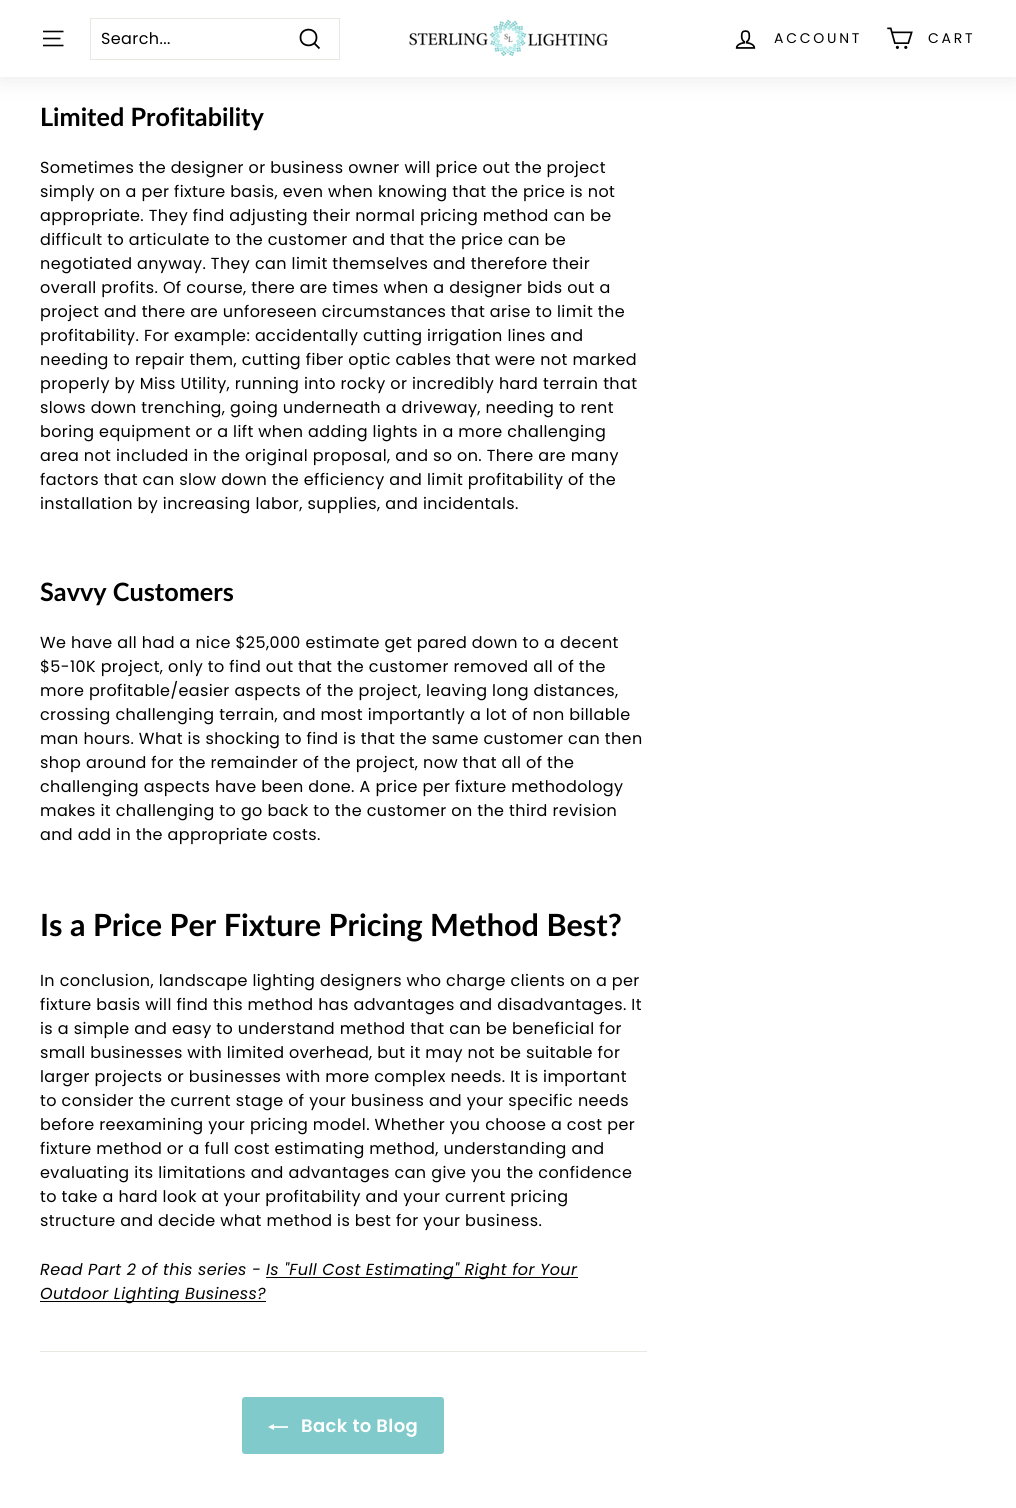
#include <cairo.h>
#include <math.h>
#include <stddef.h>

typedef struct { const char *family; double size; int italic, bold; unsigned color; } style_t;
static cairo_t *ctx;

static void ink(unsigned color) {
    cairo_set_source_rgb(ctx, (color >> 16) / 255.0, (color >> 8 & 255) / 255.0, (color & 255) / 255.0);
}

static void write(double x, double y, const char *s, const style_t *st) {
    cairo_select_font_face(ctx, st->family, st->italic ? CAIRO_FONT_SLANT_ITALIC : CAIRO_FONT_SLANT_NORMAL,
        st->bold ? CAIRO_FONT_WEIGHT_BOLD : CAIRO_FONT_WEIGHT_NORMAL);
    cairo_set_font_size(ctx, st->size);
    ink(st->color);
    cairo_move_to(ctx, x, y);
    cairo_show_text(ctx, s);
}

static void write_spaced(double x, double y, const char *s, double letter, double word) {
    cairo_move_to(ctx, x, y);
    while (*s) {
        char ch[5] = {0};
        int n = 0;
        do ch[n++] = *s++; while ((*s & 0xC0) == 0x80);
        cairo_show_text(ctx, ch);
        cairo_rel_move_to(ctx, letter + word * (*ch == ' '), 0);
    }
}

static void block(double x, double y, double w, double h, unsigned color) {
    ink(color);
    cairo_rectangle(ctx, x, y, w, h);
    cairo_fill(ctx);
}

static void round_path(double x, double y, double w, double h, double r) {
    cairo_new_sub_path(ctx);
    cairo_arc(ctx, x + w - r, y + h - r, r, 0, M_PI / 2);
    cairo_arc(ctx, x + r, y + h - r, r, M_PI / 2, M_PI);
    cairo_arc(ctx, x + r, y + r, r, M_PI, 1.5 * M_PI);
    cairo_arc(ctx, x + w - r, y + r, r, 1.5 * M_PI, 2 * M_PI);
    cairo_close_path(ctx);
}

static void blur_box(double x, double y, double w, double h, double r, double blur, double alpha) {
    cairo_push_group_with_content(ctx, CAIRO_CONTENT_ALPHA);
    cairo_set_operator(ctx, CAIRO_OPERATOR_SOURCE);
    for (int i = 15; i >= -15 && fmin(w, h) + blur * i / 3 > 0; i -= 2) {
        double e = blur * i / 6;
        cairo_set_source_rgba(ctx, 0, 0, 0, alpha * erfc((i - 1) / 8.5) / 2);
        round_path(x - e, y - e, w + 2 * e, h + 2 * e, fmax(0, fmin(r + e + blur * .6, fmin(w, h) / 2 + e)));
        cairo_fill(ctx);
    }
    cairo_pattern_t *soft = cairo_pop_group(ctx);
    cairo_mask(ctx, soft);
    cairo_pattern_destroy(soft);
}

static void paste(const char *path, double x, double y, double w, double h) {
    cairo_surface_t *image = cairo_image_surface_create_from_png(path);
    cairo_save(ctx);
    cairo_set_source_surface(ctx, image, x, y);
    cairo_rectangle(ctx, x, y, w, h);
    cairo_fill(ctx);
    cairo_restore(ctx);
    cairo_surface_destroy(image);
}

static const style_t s1 = {"Lato", 25.25, 0, 1, 0x000000};
static const style_t s2 = {"Lato", 30.6, 0, 1, 0x000000};

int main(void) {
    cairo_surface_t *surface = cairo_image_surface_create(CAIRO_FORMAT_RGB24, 1016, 1508);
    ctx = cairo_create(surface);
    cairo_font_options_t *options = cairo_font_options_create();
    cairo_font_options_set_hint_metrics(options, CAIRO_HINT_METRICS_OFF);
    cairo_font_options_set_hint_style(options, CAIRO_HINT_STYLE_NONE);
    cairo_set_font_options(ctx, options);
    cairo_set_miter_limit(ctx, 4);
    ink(0xffffff);
    cairo_paint(ctx);
    ink(0x000000);
    blur_box(0, 0, 1016, 77, 0, 12.5, 0.1);
    block(0, 0, 1016, 77, 0xffffff);
    cairo_new_path(ctx);
    cairo_move_to(ctx, 43, 31.5);
    cairo_line_to(ctx, 63.5, 31.5);
    cairo_move_to(ctx, 43, 38.5);
    cairo_line_to(ctx, 60.5, 38.5);
    cairo_move_to(ctx, 43, 45.5);
    cairo_line_to(ctx, 63.5, 45.5);
    ink(0x000000);
    cairo_set_line_width(ctx, 1.6);
    cairo_stroke(ctx);
    cairo_rectangle(ctx, 90.5, 18.5, 249, 41);
    ink(0xe8e8e1);
    cairo_set_line_width(ctx, 1);
    cairo_stroke(ctx);
    cairo_select_font_face(ctx, "Poppins", CAIRO_FONT_SLANT_NORMAL, CAIRO_FONT_WEIGHT_NORMAL);
    cairo_set_font_size(ctx, 16);
    ink(0x000000);
    write_spaced(101, 44, "Search...", 0.4, 0);
    cairo_new_path(ctx);
    cairo_move_to(ctx, 316.5, 37.5);
    cairo_curve_to(ctx, 316.5, 48, 300.5, 48, 300.5, 37.5);
    cairo_curve_to(ctx, 300.5, 27, 316.5, 27, 316.5, 37.5);
    cairo_close_path(ctx);
    cairo_move_to(ctx, 319.5, 48.5);
    cairo_line_to(ctx, 314.5, 43.5);
    cairo_set_line_width(ctx, 1.8);
    cairo_stroke(ctx);
    paste("pic1.png", 409, 19, 199, 37);
    paste("pic2.png", 735, 30, 21, 19);
    cairo_set_font_size(ctx, 14);
    write_spaced(774, 43, "ACCOUNT", 2.75, 0);
    paste("pic3.png", 887, 27, 26, 22);
    write_spaced(928, 43, "CART", 2.75, 0);
    write(40, 126, "Limited Profitability", &s1);
    cairo_select_font_face(ctx, "Poppins", CAIRO_FONT_SLANT_NORMAL, CAIRO_FONT_WEIGHT_NORMAL);
    cairo_set_font_size(ctx, 16);
    write_spaced(40, 173, "Sometimes the designer or business owner will price out the project", 0.4, 0);
    write_spaced(40, 197, "simply on a per fixture basis, even when knowing that the price is not", 0.4, 0);
    write_spaced(40, 221, "appropriate. They find adjusting their normal pricing method can be", 0.4, 0);
    write_spaced(40, 245, "difficult to articulate to the customer and that the price can be", 0.4, 0);
    write_spaced(40, 269, "negotiated anyway. They can limit themselves and therefore their", 0.4, 0);
    write_spaced(40, 293, "overall profits. Of course, there are times when a designer bids out a", 0.4, 0);
    write_spaced(40, 317, "project and there are unforeseen circumstances that arise to limit the", 0.4, 0);
    write_spaced(40, 341, "profitability. For example: accidentally cutting irrigation lines and", 0.4, 0);
    write_spaced(40, 365, "needing to repair them, cutting fiber optic cables that were not marked", 0.4, 0);
    write_spaced(40, 389, "properly by Miss Utility, running into rocky or incredibly hard terrain that", 0.4, 0);
    write_spaced(40, 413, "slows down trenching, going underneath a driveway, needing to rent", 0.4, 0);
    write_spaced(40, 437, "boring equipment or a lift when adding lights in a more challenging", 0.4, 0);
    write_spaced(40, 461, "area not included in the original proposal, and so on. There are many", 0.4, 0);
    write_spaced(40, 485, "factors that can slow down the efficiency and limit profitability of the", 0.4, 0);
    write_spaced(40, 509, "installation by increasing labor, supplies, and incidentals.", 0.4, 0);
    write(40, 601, "Savvy Customers", &s1);
    cairo_select_font_face(ctx, "Poppins", CAIRO_FONT_SLANT_NORMAL, CAIRO_FONT_WEIGHT_NORMAL);
    cairo_set_font_size(ctx, 16);
    write_spaced(40, 648, "We have all had a nice $25,000 estimate get pared down to a decent", 0.4, 0);
    write_spaced(40, 672, "$5-10K project, only to find out that the customer removed all of the", 0.4, 0);
    write_spaced(40, 696, "more profitable/easier aspects of the project, leaving long distances,", 0.4, 0);
    write_spaced(40, 720, "crossing challenging terrain, and most importantly a lot of non billable", 0.4, 0);
    write_spaced(40, 744, "man hours. What is shocking to find is that the same customer can then", 0.4, 0);
    write_spaced(40, 768, "shop around for the remainder of the project, now that all of the", 0.4, 0);
    write_spaced(40, 792, "challenging aspects have been done. A price per fixture methodology", 0.4, 0);
    write_spaced(40, 816, "makes it challenging to go back to the customer on the third revision", 0.4, 0);
    write_spaced(40, 840, "and add in the appropriate costs.", 0.4, 0);
    write(40, 936, "Is a Price Per Fixture Pricing Method Best?", &s2);
    cairo_select_font_face(ctx, "Poppins", CAIRO_FONT_SLANT_NORMAL, CAIRO_FONT_WEIGHT_NORMAL);
    cairo_set_font_size(ctx, 16);
    write_spaced(40, 986, "In conclusion, landscape lighting designers who charge clients on a per", 0.4, 0);
    write_spaced(40, 1010, "fixture basis will find this method has advantages and disadvantages. It", 0.4, 0);
    write_spaced(40, 1034, "is a simple and easy to understand method that can be beneficial for", 0.4, 0);
    write_spaced(40, 1058, "small businesses with limited overhead, but it may not be suitable for", 0.4, 0);
    write_spaced(40, 1082, "larger projects or businesses with more complex needs. It is important", 0.4, 0);
    write_spaced(40, 1106, "to consider the current stage of your business and your specific needs", 0.4, 0);
    write_spaced(40, 1130, "before reexamining your pricing model. Whether you choose a cost per", 0.4, 0);
    write_spaced(40, 1154, "fixture method or a full cost estimating method, understanding and", 0.4, 0);
    write_spaced(40, 1178, "evaluating its limitations and advantages can give you the confidence", 0.4, 0);
    write_spaced(40, 1202, "to take a hard look at your profitability and your current pricing", 0.4, 0);
    write_spaced(40, 1226, "structure and decide what method is best for your business.", 0.4, 0);
    cairo_select_font_face(ctx, "Poppins", CAIRO_FONT_SLANT_ITALIC, CAIRO_FONT_WEIGHT_NORMAL);
    write_spaced(40, 1275, "Read Part 2 of this series -", 0.4, 0);
    block(266, 1277, 312, 1, 0x000000);
    write_spaced(266, 1275, "Is \"Full Cost Estimating\" Right for Your", 0.4, 0);
    block(40, 1301, 226, 1, 0x000000);
    write_spaced(40, 1299, "Outdoor Lighting Business?", 0.4, 0);
    block(40, 1351, 607, 1, 0xe8e8e1);
    ink(0x80cacb);
    round_path(242, 1397, 202, 57, 3);
    cairo_fill(ctx);
    paste("pic4.png", 268, 1424, 20, 6);
    cairo_select_font_face(ctx, "Poppins SemiBold", CAIRO_FONT_SLANT_NORMAL, CAIRO_FONT_WEIGHT_NORMAL);
    cairo_set_font_size(ctx, 18);
    ink(0xffffff);
    write_spaced(301, 1432, "Back to Blog", 0.4, 0);
    cairo_surface_write_to_png(surface, "screenshot.png");
    cairo_font_options_destroy(options);
    cairo_destroy(ctx);
    cairo_surface_destroy(surface);
    return 0;
}
